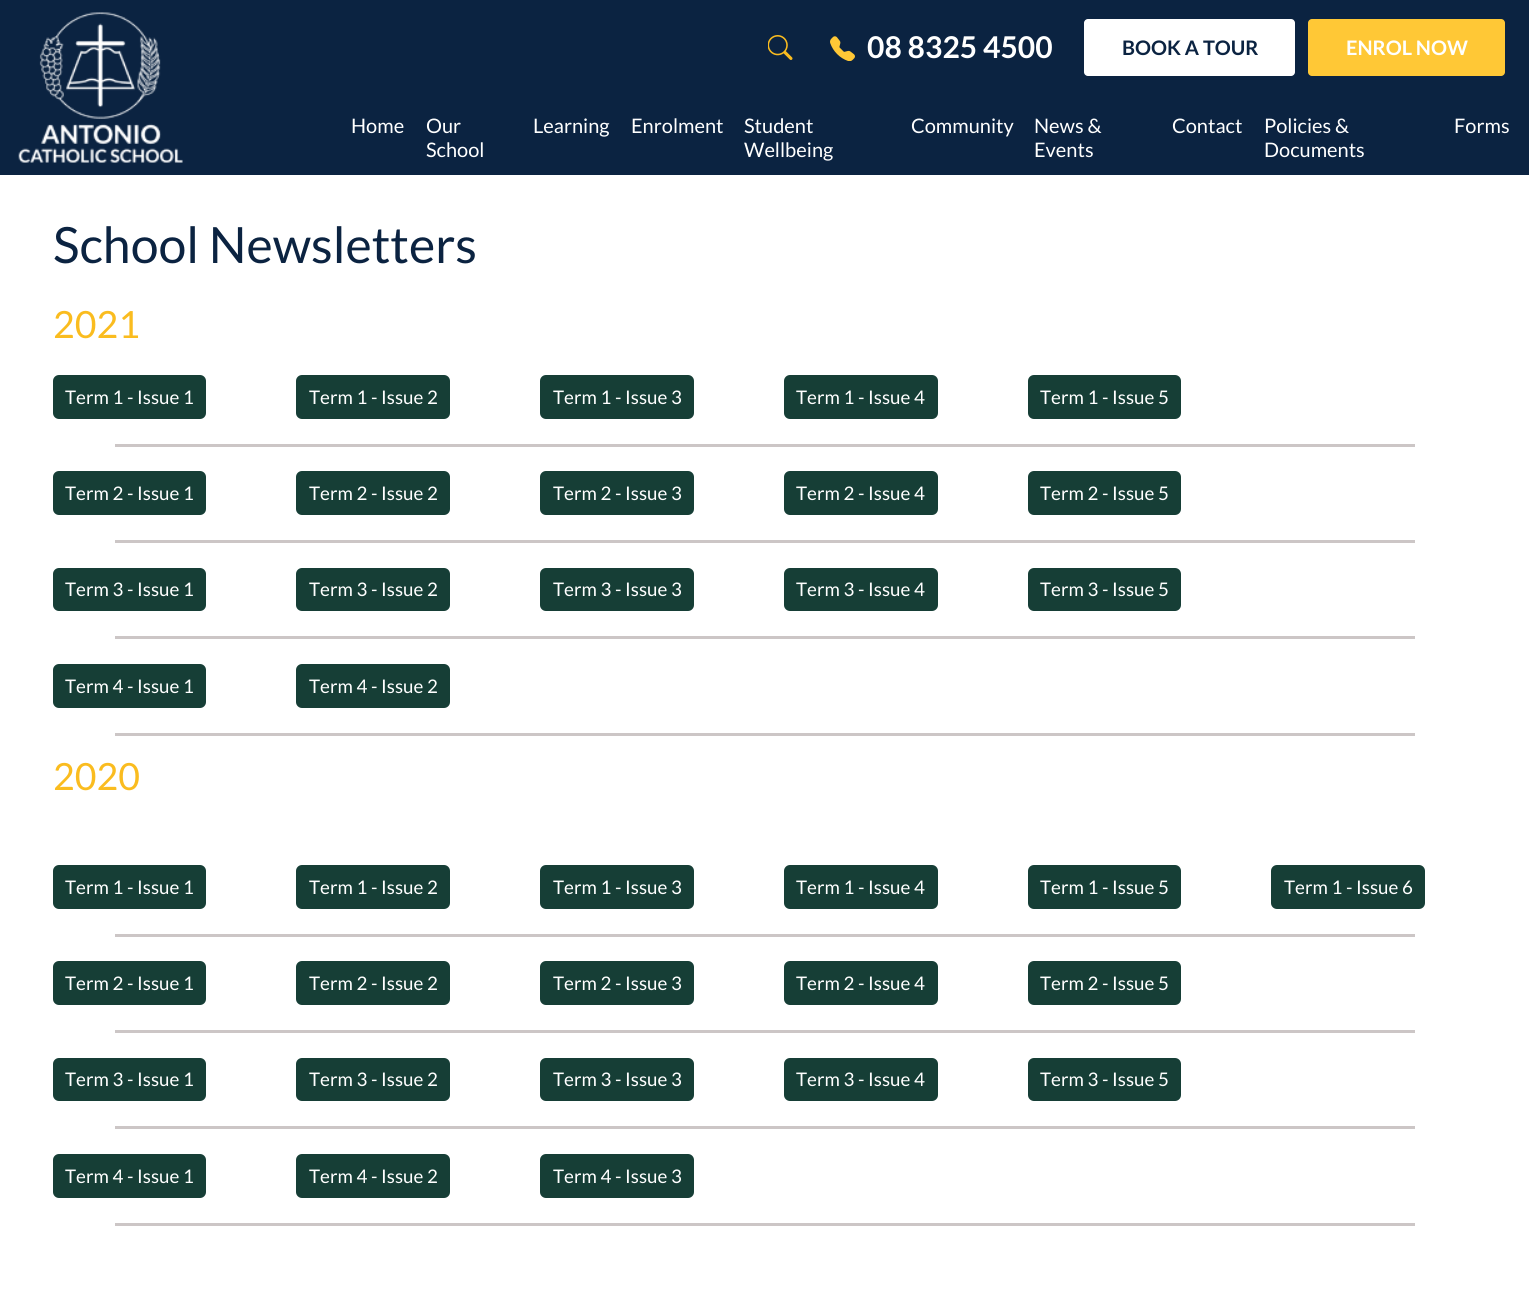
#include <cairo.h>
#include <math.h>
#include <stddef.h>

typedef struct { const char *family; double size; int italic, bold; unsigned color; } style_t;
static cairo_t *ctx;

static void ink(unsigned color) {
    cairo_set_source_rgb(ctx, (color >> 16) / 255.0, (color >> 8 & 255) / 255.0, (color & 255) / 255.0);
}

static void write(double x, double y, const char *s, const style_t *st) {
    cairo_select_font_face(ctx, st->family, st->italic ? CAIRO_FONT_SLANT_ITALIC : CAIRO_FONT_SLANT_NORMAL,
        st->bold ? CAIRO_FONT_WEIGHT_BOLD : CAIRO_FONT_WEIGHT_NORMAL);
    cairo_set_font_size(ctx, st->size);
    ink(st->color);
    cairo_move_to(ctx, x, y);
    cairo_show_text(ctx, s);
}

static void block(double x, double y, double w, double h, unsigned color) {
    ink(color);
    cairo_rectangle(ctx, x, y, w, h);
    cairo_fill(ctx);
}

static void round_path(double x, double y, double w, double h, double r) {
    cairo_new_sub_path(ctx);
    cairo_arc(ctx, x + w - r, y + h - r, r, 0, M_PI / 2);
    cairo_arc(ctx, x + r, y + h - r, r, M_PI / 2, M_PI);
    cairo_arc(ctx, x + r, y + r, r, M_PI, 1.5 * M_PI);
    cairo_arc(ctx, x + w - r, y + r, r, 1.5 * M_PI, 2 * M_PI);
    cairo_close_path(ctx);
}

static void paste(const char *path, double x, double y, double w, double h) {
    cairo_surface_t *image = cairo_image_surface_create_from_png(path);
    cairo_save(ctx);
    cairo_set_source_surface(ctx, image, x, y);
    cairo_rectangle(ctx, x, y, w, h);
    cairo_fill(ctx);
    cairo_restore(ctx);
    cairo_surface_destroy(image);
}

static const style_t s1 = {"Lato", 30, 0, 1, 0xffffff};
static const style_t s2 = {"Lato", 20, 0, 1, 0x0b2341};
static const style_t s3 = {"Lato", 20, 0, 1, 0xffffff};
static const style_t s4 = {"Lato", 20, 0, 0, 0xffffff};
static const style_t s5 = {"Lato", 50, 0, 0, 0x0b2341};
static const style_t s6 = {"Lato", 37.5, 0, 0, 0xfabc1f};
static const style_t s7 = {"Lato", 18.75, 0, 0, 0xffffff};

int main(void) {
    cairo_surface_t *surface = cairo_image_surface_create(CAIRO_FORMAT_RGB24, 1529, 1295);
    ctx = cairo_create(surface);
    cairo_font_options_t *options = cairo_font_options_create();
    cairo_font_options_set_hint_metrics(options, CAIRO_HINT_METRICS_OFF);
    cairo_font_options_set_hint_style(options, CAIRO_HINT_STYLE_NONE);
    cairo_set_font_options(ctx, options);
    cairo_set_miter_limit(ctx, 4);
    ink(0xffffff);
    cairo_paint(ctx);
    block(0, 0, 1529, 175, 0x0b2341);
    paste("pic1.png", 18, 12, 165, 151);
    paste("pic2.png", 768, 35, 25, 25);
    paste("pic3.png", 830, 36, 25, 25);
    write(867, 58, "08 8325 4500", &s1);
    round_path(1084, 19, 211, 57, 4);
    cairo_fill(ctx);
    write(1122, 55, "BOOK A TOUR", &s2);
    ink(0xffc836);
    round_path(1308, 19, 197, 57, 4);
    cairo_fill(ctx);
    write(1346, 55, "ENROL NOW", &s3);
    write(351, 133, "Home", &s4);
    write(426, 133, "Our", &s4);
    write(426, 157, "School", &s4);
    write(533, 133, "Learning", &s4);
    write(631, 133, "Enrolment", &s4);
    write(744, 133, "Student", &s4);
    write(744, 157, "Wellbeing", &s4);
    write(911, 133, "Community", &s4);
    write(1034, 133, "News &", &s4);
    write(1034, 157, "Events", &s4);
    write(1172, 133, "Contact", &s4);
    write(1264, 133, "Policies &", &s4);
    write(1264, 157, "Documents", &s4);
    write(1454, 133, "Forms", &s4);
    write(53, 263, "School Newsletters", &s5);
    write(53, 338, "2021", &s6);
    ink(0x163e36);
    round_path(53, 375, 153, 44, 6);
    cairo_fill(ctx);
    write(65, 404, "Term 1 - Issue 1", &s7);
    ink(0x163e36);
    round_path(296, 375, 154, 44, 6);
    cairo_fill(ctx);
    write(309, 404, "Term 1 - Issue 2", &s7);
    ink(0x163e36);
    round_path(540, 375, 154, 44, 6);
    cairo_fill(ctx);
    write(553, 404, "Term 1 - Issue 3", &s7);
    ink(0x163e36);
    round_path(784, 375, 154, 44, 6);
    cairo_fill(ctx);
    write(796, 404, "Term 1 - Issue 4", &s7);
    ink(0x163e36);
    round_path(1028, 375, 153, 44, 6);
    cairo_fill(ctx);
    write(1040, 404, "Term 1 - Issue 5", &s7);
    block(115, 444, 1300, 3, 0xccc6c6);
    ink(0x163e36);
    round_path(53, 471, 153, 44, 6);
    cairo_fill(ctx);
    write(65, 500, "Term 2 - Issue 1", &s7);
    ink(0x163e36);
    round_path(296, 471, 154, 44, 6);
    cairo_fill(ctx);
    write(309, 500, "Term 2 - Issue 2", &s7);
    ink(0x163e36);
    round_path(540, 471, 154, 44, 6);
    cairo_fill(ctx);
    write(553, 500, "Term 2 - Issue 3", &s7);
    ink(0x163e36);
    round_path(784, 471, 154, 44, 6);
    cairo_fill(ctx);
    write(796, 500, "Term 2 - Issue 4", &s7);
    ink(0x163e36);
    round_path(1028, 471, 153, 44, 6);
    cairo_fill(ctx);
    write(1040, 500, "Term 2 - Issue 5", &s7);
    block(115, 540, 1300, 3, 0xccc6c6);
    ink(0x163e36);
    round_path(53, 568, 153, 43, 6);
    cairo_fill(ctx);
    write(65, 596, "Term 3 - Issue 1", &s7);
    ink(0x163e36);
    round_path(296, 568, 154, 43, 6);
    cairo_fill(ctx);
    write(309, 596, "Term 3 - Issue 2", &s7);
    ink(0x163e36);
    round_path(540, 568, 154, 43, 6);
    cairo_fill(ctx);
    write(553, 596, "Term 3 - Issue 3", &s7);
    ink(0x163e36);
    round_path(784, 568, 154, 43, 6);
    cairo_fill(ctx);
    write(796, 596, "Term 3 - Issue 4", &s7);
    ink(0x163e36);
    round_path(1028, 568, 153, 43, 6);
    cairo_fill(ctx);
    write(1040, 596, "Term 3 - Issue 5", &s7);
    block(115, 636, 1300, 3, 0xccc6c6);
    ink(0x163e36);
    round_path(53, 664, 153, 44, 6);
    cairo_fill(ctx);
    write(65, 693, "Term 4 - Issue 1", &s7);
    ink(0x163e36);
    round_path(296, 664, 154, 44, 6);
    cairo_fill(ctx);
    write(309, 693, "Term 4 - Issue 2", &s7);
    block(115, 733, 1300, 3, 0xccc6c6);
    write(53, 790, "2020", &s6);
    ink(0x163e36);
    round_path(53, 865, 153, 44, 6);
    cairo_fill(ctx);
    write(65, 894, "Term 1 - Issue 1", &s7);
    ink(0x163e36);
    round_path(296, 865, 154, 44, 6);
    cairo_fill(ctx);
    write(309, 894, "Term 1 - Issue 2", &s7);
    ink(0x163e36);
    round_path(540, 865, 154, 44, 6);
    cairo_fill(ctx);
    write(553, 894, "Term 1 - Issue 3", &s7);
    ink(0x163e36);
    round_path(784, 865, 154, 44, 6);
    cairo_fill(ctx);
    write(796, 894, "Term 1 - Issue 4", &s7);
    ink(0x163e36);
    round_path(1028, 865, 153, 44, 6);
    cairo_fill(ctx);
    write(1040, 894, "Term 1 - Issue 5", &s7);
    ink(0x163e36);
    round_path(1271, 865, 154, 44, 6);
    cairo_fill(ctx);
    write(1284, 894, "Term 1 - Issue 6", &s7);
    block(115, 934, 1300, 3, 0xccc6c6);
    ink(0x163e36);
    round_path(53, 961, 153, 44, 6);
    cairo_fill(ctx);
    write(65, 990, "Term 2 - Issue 1", &s7);
    ink(0x163e36);
    round_path(296, 961, 154, 44, 6);
    cairo_fill(ctx);
    write(309, 990, "Term 2 - Issue 2", &s7);
    ink(0x163e36);
    round_path(540, 961, 154, 44, 6);
    cairo_fill(ctx);
    write(553, 990, "Term 2 - Issue 3", &s7);
    ink(0x163e36);
    round_path(784, 961, 154, 44, 6);
    cairo_fill(ctx);
    write(796, 990, "Term 2 - Issue 4", &s7);
    ink(0x163e36);
    round_path(1028, 961, 153, 44, 6);
    cairo_fill(ctx);
    write(1040, 990, "Term 2 - Issue 5", &s7);
    block(115, 1030, 1300, 3, 0xccc6c6);
    ink(0x163e36);
    round_path(53, 1058, 153, 43, 6);
    cairo_fill(ctx);
    write(65, 1086, "Term 3 - Issue 1", &s7);
    ink(0x163e36);
    round_path(296, 1058, 154, 43, 6);
    cairo_fill(ctx);
    write(309, 1086, "Term 3 - Issue 2", &s7);
    ink(0x163e36);
    round_path(540, 1058, 154, 43, 6);
    cairo_fill(ctx);
    write(553, 1086, "Term 3 - Issue 3", &s7);
    ink(0x163e36);
    round_path(784, 1058, 154, 43, 6);
    cairo_fill(ctx);
    write(796, 1086, "Term 3 - Issue 4", &s7);
    ink(0x163e36);
    round_path(1028, 1058, 153, 43, 6);
    cairo_fill(ctx);
    write(1040, 1086, "Term 3 - Issue 5", &s7);
    block(115, 1126, 1300, 3, 0xccc6c6);
    ink(0x163e36);
    round_path(53, 1154, 153, 44, 6);
    cairo_fill(ctx);
    write(65, 1183, "Term 4 - Issue 1", &s7);
    ink(0x163e36);
    round_path(296, 1154, 154, 44, 6);
    cairo_fill(ctx);
    write(309, 1183, "Term 4 - Issue 2", &s7);
    ink(0x163e36);
    round_path(540, 1154, 154, 44, 6);
    cairo_fill(ctx);
    write(553, 1183, "Term 4 - Issue 3", &s7);
    block(115, 1223, 1300, 3, 0xccc6c6);
    cairo_surface_write_to_png(surface, "screenshot.png");
    cairo_font_options_destroy(options);
    cairo_destroy(ctx);
    cairo_surface_destroy(surface);
    return 0;
}
